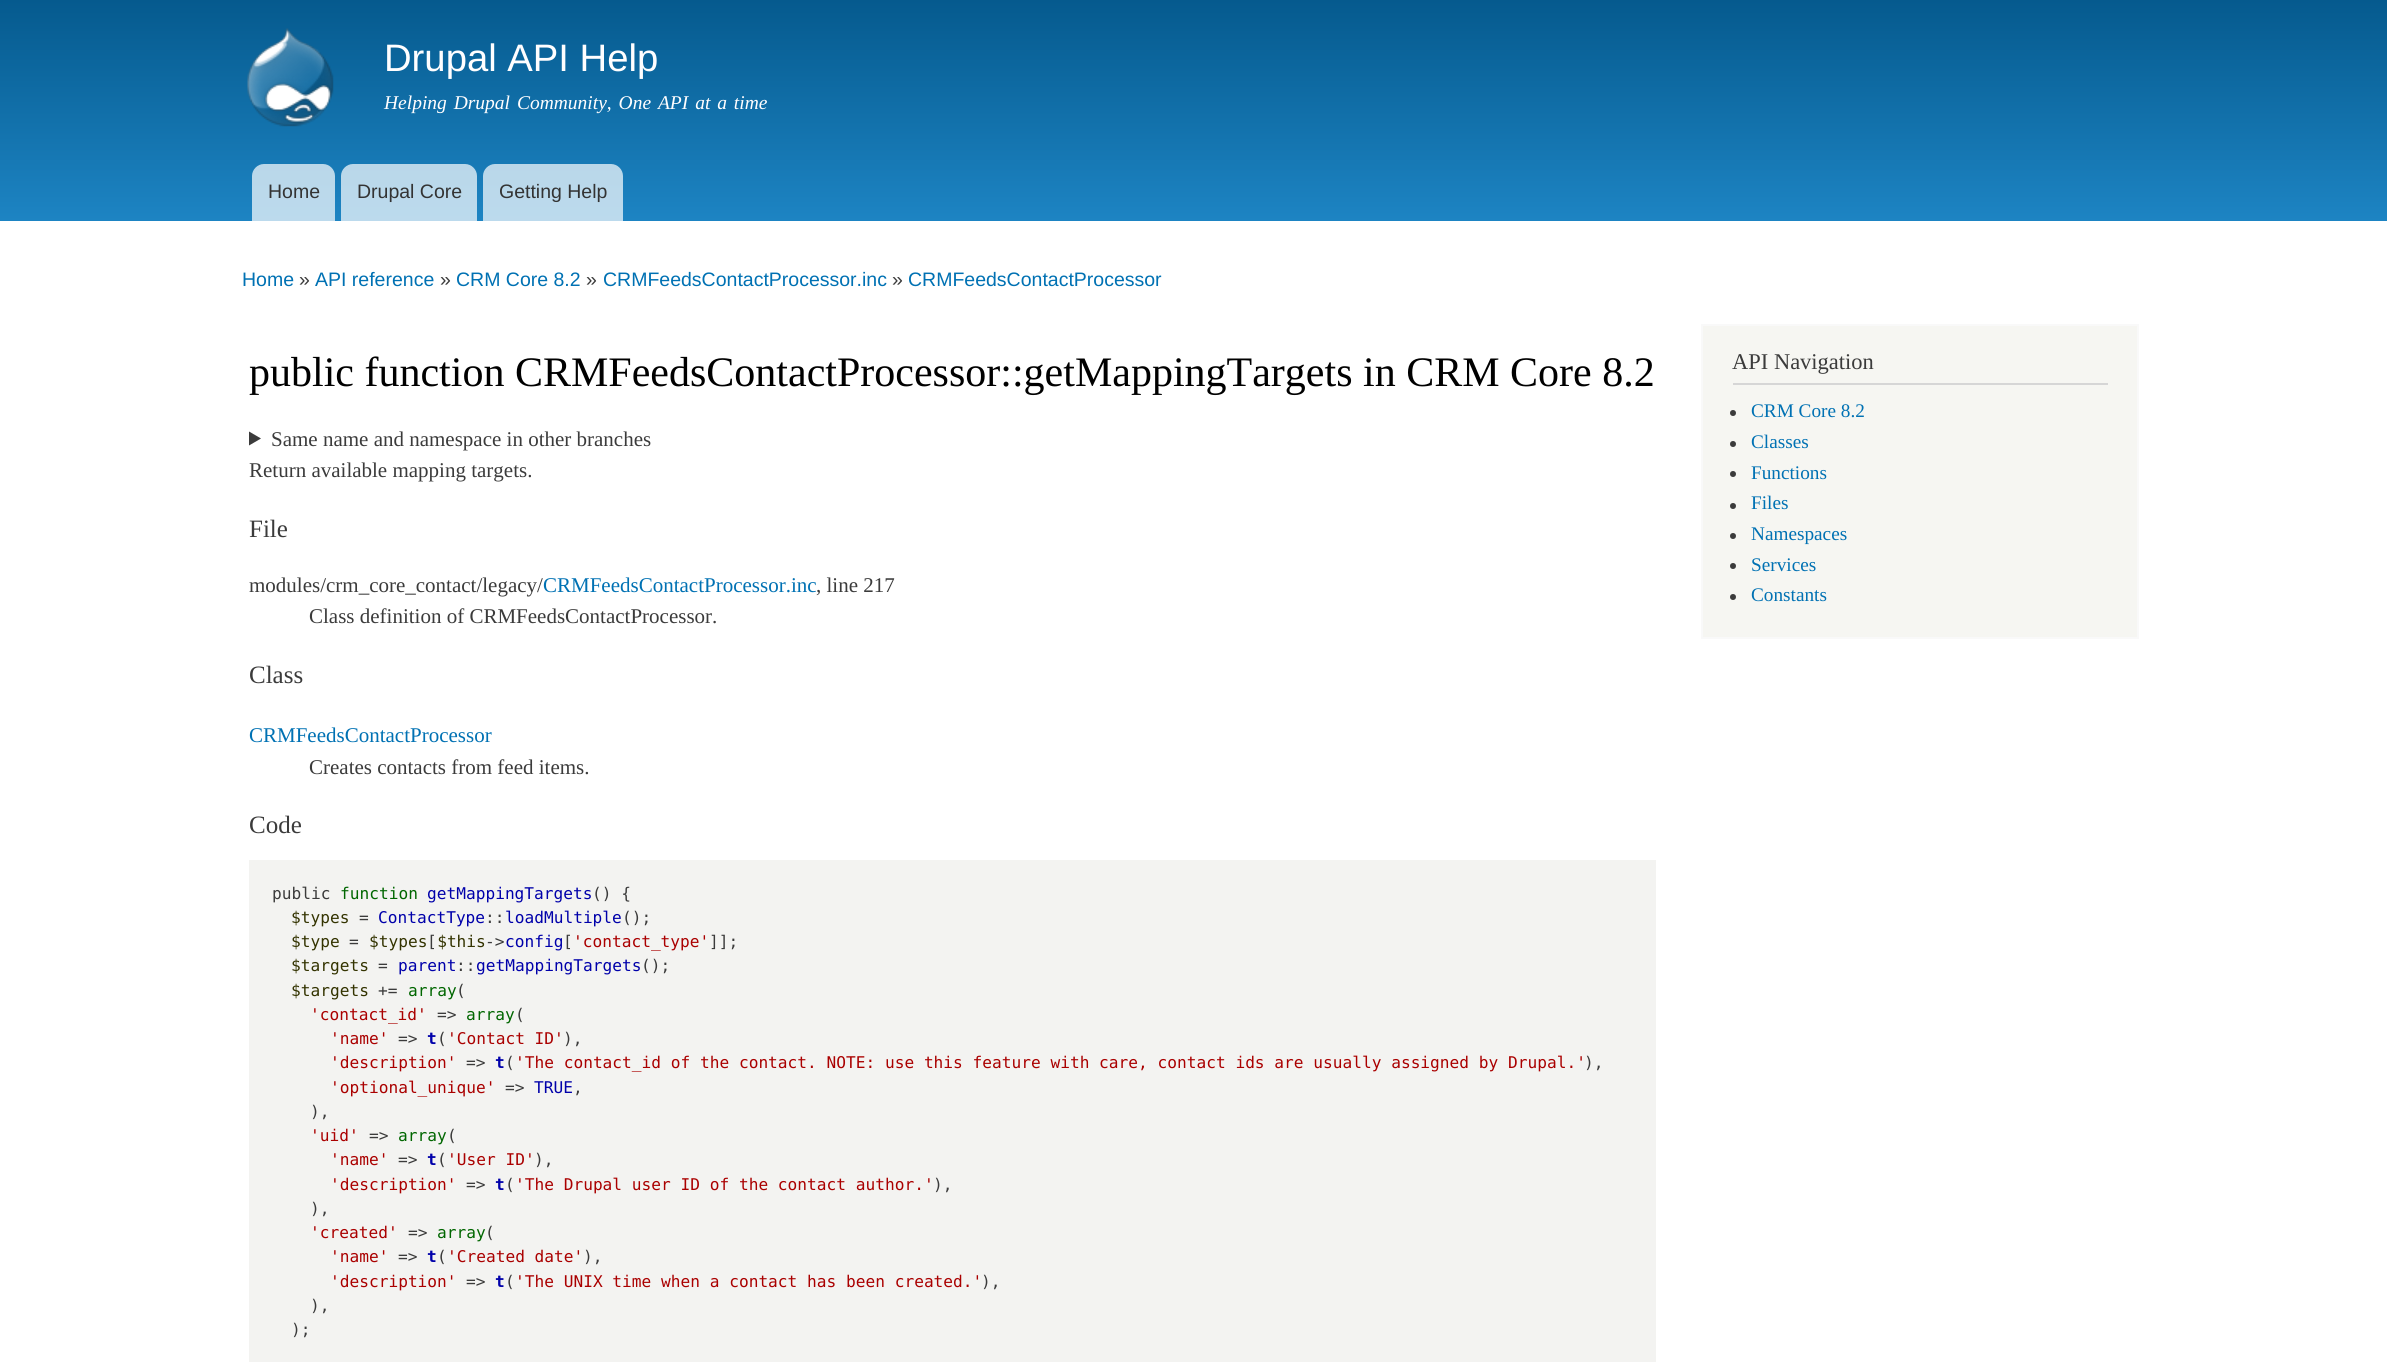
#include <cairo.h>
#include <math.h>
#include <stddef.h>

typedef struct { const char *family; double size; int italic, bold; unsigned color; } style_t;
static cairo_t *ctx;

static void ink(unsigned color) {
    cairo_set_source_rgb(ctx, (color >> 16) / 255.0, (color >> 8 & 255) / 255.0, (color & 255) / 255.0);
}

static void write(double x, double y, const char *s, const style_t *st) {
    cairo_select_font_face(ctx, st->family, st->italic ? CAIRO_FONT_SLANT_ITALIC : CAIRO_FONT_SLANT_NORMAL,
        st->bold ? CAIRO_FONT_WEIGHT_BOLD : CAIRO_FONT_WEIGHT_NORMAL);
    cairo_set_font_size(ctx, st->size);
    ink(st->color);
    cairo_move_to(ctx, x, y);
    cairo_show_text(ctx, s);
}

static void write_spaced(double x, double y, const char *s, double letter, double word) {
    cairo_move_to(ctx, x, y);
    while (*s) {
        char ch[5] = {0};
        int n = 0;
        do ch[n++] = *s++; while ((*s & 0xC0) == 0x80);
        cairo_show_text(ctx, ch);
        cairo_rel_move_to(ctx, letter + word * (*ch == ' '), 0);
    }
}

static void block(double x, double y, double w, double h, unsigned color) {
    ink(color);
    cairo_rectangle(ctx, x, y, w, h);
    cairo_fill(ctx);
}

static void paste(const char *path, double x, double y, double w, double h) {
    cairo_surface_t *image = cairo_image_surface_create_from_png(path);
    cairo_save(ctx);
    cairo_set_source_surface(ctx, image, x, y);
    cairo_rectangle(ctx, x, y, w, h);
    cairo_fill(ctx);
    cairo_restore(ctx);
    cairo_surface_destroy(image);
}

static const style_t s1 = {"Liberation Sans", 38.25, 0, 0, 0xfffeff};
static const style_t s2 = {"Liberation Sans", 19.5, 0, 0, 0x333333};
static const style_t s3 = {"Liberation Sans", 19.5, 0, 0, 0x0071b3};
static const style_t s4 = {"Liberation Sans", 19.5, 0, 0, 0x3b3b3b};
static const style_t s5 = {"Liberation Serif", 42, 0, 0, 0x000000};
static const style_t s6 = {"Liberation Serif", 21, 0, 0, 0x3b3b3b};
static const style_t s7 = {"Liberation Serif", 25, 0, 0, 0x3b3b3b};
static const style_t s8 = {"Liberation Serif", 21, 0, 0, 0x0071b3};
static const style_t s9 = {"DejaVu Sans Mono", 16.17, 0, 0, 0x3b3b3b};
static const style_t s10 = {"DejaVu Sans Mono", 16.17, 0, 0, 0x006600};
static const style_t s11 = {"DejaVu Sans Mono", 16.17, 0, 0, 0x0000aa};
static const style_t s12 = {"DejaVu Sans Mono", 16.17, 0, 0, 0x333300};
static const style_t s13 = {"DejaVu Sans Mono", 16.17, 0, 0, 0xaa0000};
static const style_t s14 = {"DejaVu Sans Mono", 16.17, 0, 1, 0x0000aa};
static const style_t s15 = {"Liberation Serif", 22.5, 0, 0, 0x3b3b3b};
static const style_t s16 = {"Liberation Serif", 19.25, 0, 0, 0x0071b3};

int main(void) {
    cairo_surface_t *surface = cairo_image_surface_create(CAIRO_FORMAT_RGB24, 2387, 1362);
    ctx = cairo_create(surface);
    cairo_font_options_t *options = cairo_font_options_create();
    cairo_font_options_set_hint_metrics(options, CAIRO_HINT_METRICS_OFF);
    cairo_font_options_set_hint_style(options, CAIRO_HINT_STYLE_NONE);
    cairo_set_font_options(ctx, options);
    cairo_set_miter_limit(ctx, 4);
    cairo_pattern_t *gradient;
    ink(0xffffff);
    cairo_paint(ctx);
    gradient = cairo_pattern_create_linear(1194, 0, 1194, 221);
    cairo_pattern_add_color_stop_rgba(gradient, 0, 0.02, 0.353, 0.557, 1);
    cairo_pattern_add_color_stop_rgba(gradient, 1, 0.114, 0.518, 0.765, 1);
    cairo_set_source(ctx, gradient);
    cairo_pattern_destroy(gradient);
    cairo_rectangle(ctx, 0, 0, 2387, 221);
    cairo_fill(ctx);
    paste("pic1.png", 247, 28, 87, 99);
    write(384, 71, "Drupal API Help", &s1);
    cairo_select_font_face(ctx, "Liberation Serif", CAIRO_FONT_SLANT_ITALIC, CAIRO_FONT_WEIGHT_NORMAL);
    cairo_set_font_size(ctx, 19.5);
    write_spaced(384, 109, "Helping Drupal Community, One API at a time", 0, 2);
    cairo_set_source_rgba(ctx, 1, 1, 1, 0.7);
    cairo_new_path(ctx);
    cairo_move_to(ctx, 264, 164);
    cairo_line_to(ctx, 323, 164);
    cairo_curve_to(ctx, 329.5, 164, 335, 169.5, 335, 176);
    cairo_line_to(ctx, 335, 221);
    cairo_line_to(ctx, 252, 221);
    cairo_line_to(ctx, 252, 176);
    cairo_curve_to(ctx, 252, 169.5, 257.5, 164, 264, 164);
    cairo_close_path(ctx);
    cairo_fill(ctx);
    write(268, 198, "Home", &s2);
    cairo_set_source_rgba(ctx, 1, 1, 1, 0.7);
    cairo_new_path(ctx);
    cairo_move_to(ctx, 353, 164);
    cairo_line_to(ctx, 465, 164);
    cairo_curve_to(ctx, 471.5, 164, 477, 169.5, 477, 176);
    cairo_line_to(ctx, 477, 221);
    cairo_line_to(ctx, 341, 221);
    cairo_line_to(ctx, 341, 176);
    cairo_curve_to(ctx, 341, 169.5, 346.5, 164, 353, 164);
    cairo_close_path(ctx);
    cairo_fill(ctx);
    write(357, 198, "Drupal Core", &s2);
    cairo_set_source_rgba(ctx, 1, 1, 1, 0.7);
    cairo_new_path(ctx);
    cairo_move_to(ctx, 495, 164);
    cairo_line_to(ctx, 611, 164);
    cairo_curve_to(ctx, 617.5, 164, 623, 169.5, 623, 176);
    cairo_line_to(ctx, 623, 221);
    cairo_line_to(ctx, 483, 221);
    cairo_line_to(ctx, 483, 176);
    cairo_curve_to(ctx, 483, 169.5, 488.5, 164, 495, 164);
    cairo_close_path(ctx);
    cairo_fill(ctx);
    write(499, 198, "Getting Help", &s2);
    write(242, 286, "Home", &s3);
    write(299, 286, "»", &s4);
    write(315, 286, "API reference", &s3);
    write(440, 286, "»", &s4);
    write(456, 286, "CRM Core 8.2", &s3);
    write(586, 286, "»", &s4);
    write(603, 286, "CRMFeedsContactProcessor.inc", &s3);
    write(892, 286, "»", &s4);
    write(908, 286, "CRMFeedsContactProcessor", &s3);
    write(249, 386, "public function CRMFeedsContactProcessor::getMappingTargets in CRM Core 8.2", &s5);
    ink(0x3b3b3b);
    cairo_new_path(ctx);
    cairo_move_to(ctx, 249, 431.5);
    cairo_line_to(ctx, 261, 438.5);
    cairo_line_to(ctx, 249, 445.5);
    cairo_close_path(ctx);
    cairo_fill(ctx);
    write(271, 446, "Same name and namespace in other branches", &s6);
    write(249, 477, "Return available mapping targets.", &s6);
    write(249, 537, "File", &s7);
    write(249, 592, "modules/crm_core_contact/legacy/", &s6);
    write(543, 592, "CRMFeedsContactProcessor.inc", &s8);
    write(816, 592, ", line 217", &s6);
    write(309, 623, "Class definition of CRMFeedsContactProcessor.", &s6);
    write(249, 683, "Class", &s7);
    write(249, 742, "CRMFeedsContactProcessor", &s8);
    write(309, 774, "Creates contacts from feed items.", &s6);
    write(249, 833, "Code", &s7);
    block(249, 860, 1407, 502, 0xf3f3f1);
    write(272, 899, "public", &s9);
    write(340, 899, "function", &s10);
    write(427, 899, "getMappingTargets", &s11);
    write(592, 899, "() {", &s9);
    write(291, 923, "$types", &s12);
    write(359, 923, "=", &s9);
    write(378, 923, "ContactType", &s11);
    write(485, 923, "::", &s9);
    write(505, 923, "loadMultiple", &s11);
    write(622, 923, "();", &s9);
    write(291, 947, "$type", &s12);
    write(369, 947, "$types $this", &s12);
    write(349, 947, "=", &s9);
    write(427, 947, "[", &s9);
    write(485, 947, "->", &s9);
    write(505, 947, "config", &s11);
    write(563, 947, "[", &s9);
    write(573, 947, "'contact_type'", &s13);
    write(709, 947, "]];", &s9);
    write(291, 971, "$targets", &s12);
    write(378, 971, "=", &s9);
    write(398, 971, "parent", &s11);
    write(456, 971, "::", &s9);
    write(476, 971, "getMappingTargets", &s11);
    write(641, 971, "();", &s9);
    write(291, 996, "$targets", &s12);
    write(378, 996, "+=", &s9);
    write(408, 996, "array", &s10);
    write(456, 996, "(", &s9);
    write(310, 1020, "'contact_id'", &s13);
    write(437, 1020, "=>", &s9);
    write(466, 1020, "array", &s10);
    write(515, 1020, "(", &s9);
    write(330, 1044, "'name'", &s13);
    write(398, 1044, "=>", &s9);
    write(427, 1044, "t", &s14);
    write(437, 1044, "(", &s9);
    write(447, 1044, "'Contact ID'", &s13);
    write(563, 1044, "),", &s9);
    write(330, 1068, "'description'", &s13);
    write(466, 1068, "=>", &s9);
    write(495, 1068, "t", &s14);
    write(505, 1068, "(", &s9);
    write(515, 1068, "'The contact_id of the contact. NOTE: use this feature with care, contact ids are usually assigned by Drupal.'", &s13);
    write(1584, 1068, "),", &s9);
    write(330, 1093, "'optional_unique'", &s13);
    write(505, 1093, "=>", &s9);
    write(534, 1093, "TRUE", &s11);
    write(573, 1093, ",", &s9);
    write(310, 1117, "),", &s9);
    write(310, 1141, "'uid'", &s13);
    write(369, 1141, "=>", &s9);
    write(398, 1141, "array", &s10);
    write(447, 1141, "(", &s9);
    write(330, 1165, "'name'", &s13);
    write(398, 1165, "=>", &s9);
    write(427, 1165, "t", &s14);
    write(437, 1165, "(", &s9);
    write(447, 1165, "'User ID'", &s13);
    write(534, 1165, "),", &s9);
    write(330, 1190, "'description'", &s13);
    write(466, 1190, "=>", &s9);
    write(495, 1190, "t", &s14);
    write(505, 1190, "(", &s9);
    write(515, 1190, "'The Drupal user ID of the contact author.'", &s13);
    write(933, 1190, "),", &s9);
    write(310, 1214, "),", &s9);
    write(310, 1238, "'created'", &s13);
    write(408, 1238, "=>", &s9);
    write(437, 1238, "array", &s10);
    write(485, 1238, "(", &s9);
    write(330, 1262, "'name'", &s13);
    write(398, 1262, "=>", &s9);
    write(427, 1262, "t", &s14);
    write(437, 1262, "(", &s9);
    write(447, 1262, "'Created date'", &s13);
    write(583, 1262, "),", &s9);
    write(330, 1287, "'description'", &s13);
    write(466, 1287, "=>", &s9);
    write(495, 1287, "t", &s14);
    write(505, 1287, "(", &s9);
    write(515, 1287, "'The UNIX time when a contact has been created.'", &s13);
    write(981, 1287, "),", &s9);
    write(310, 1311, "),", &s9);
    write(291, 1335, ");", &s9);
    ink(0xf6f6f2);
    cairo_rectangle(ctx, 1702, 325, 436, 313);
    cairo_fill_preserve(ctx);
    ink(0xf9f9f9);
    cairo_stroke(ctx);
    block(1733, 383, 375, 2, 0xd6d6d6);
    write(1732, 369, "API Navigation", &s15);
    cairo_new_path(ctx);
    cairo_arc(ctx, 1733, 413, 3, 0, 2 * M_PI);
    cairo_fill(ctx);
    write(1751, 417, "CRM Core 8.2", &s16);
    ink(0x3b3b3b);
    cairo_new_path(ctx);
    cairo_arc(ctx, 1733, 444, 3, 0, 2 * M_PI);
    cairo_fill(ctx);
    write(1751, 448, "Classes", &s16);
    ink(0x3b3b3b);
    cairo_new_path(ctx);
    cairo_arc(ctx, 1733, 474, 3, 0, 2 * M_PI);
    cairo_fill(ctx);
    write(1751, 479, "Functions", &s16);
    ink(0x3b3b3b);
    cairo_new_path(ctx);
    cairo_arc(ctx, 1733, 506, 3, 0, 2 * M_PI);
    cairo_fill(ctx);
    write(1751, 509, "Files", &s16);
    ink(0x3b3b3b);
    cairo_new_path(ctx);
    cairo_arc(ctx, 1733, 536, 3, 0, 2 * M_PI);
    cairo_fill(ctx);
    write(1751, 540, "Namespaces", &s16);
    ink(0x3b3b3b);
    cairo_new_path(ctx);
    cairo_arc(ctx, 1733, 566, 3, 0, 2 * M_PI);
    cairo_fill(ctx);
    write(1751, 571, "Services", &s16);
    ink(0x3b3b3b);
    cairo_new_path(ctx);
    cairo_arc(ctx, 1733, 597, 3, 0, 2 * M_PI);
    cairo_fill(ctx);
    write(1751, 601, "Constants", &s16);
    cairo_surface_write_to_png(surface, "screenshot.png");
    cairo_font_options_destroy(options);
    cairo_destroy(ctx);
    cairo_surface_destroy(surface);
    return 0;
}
